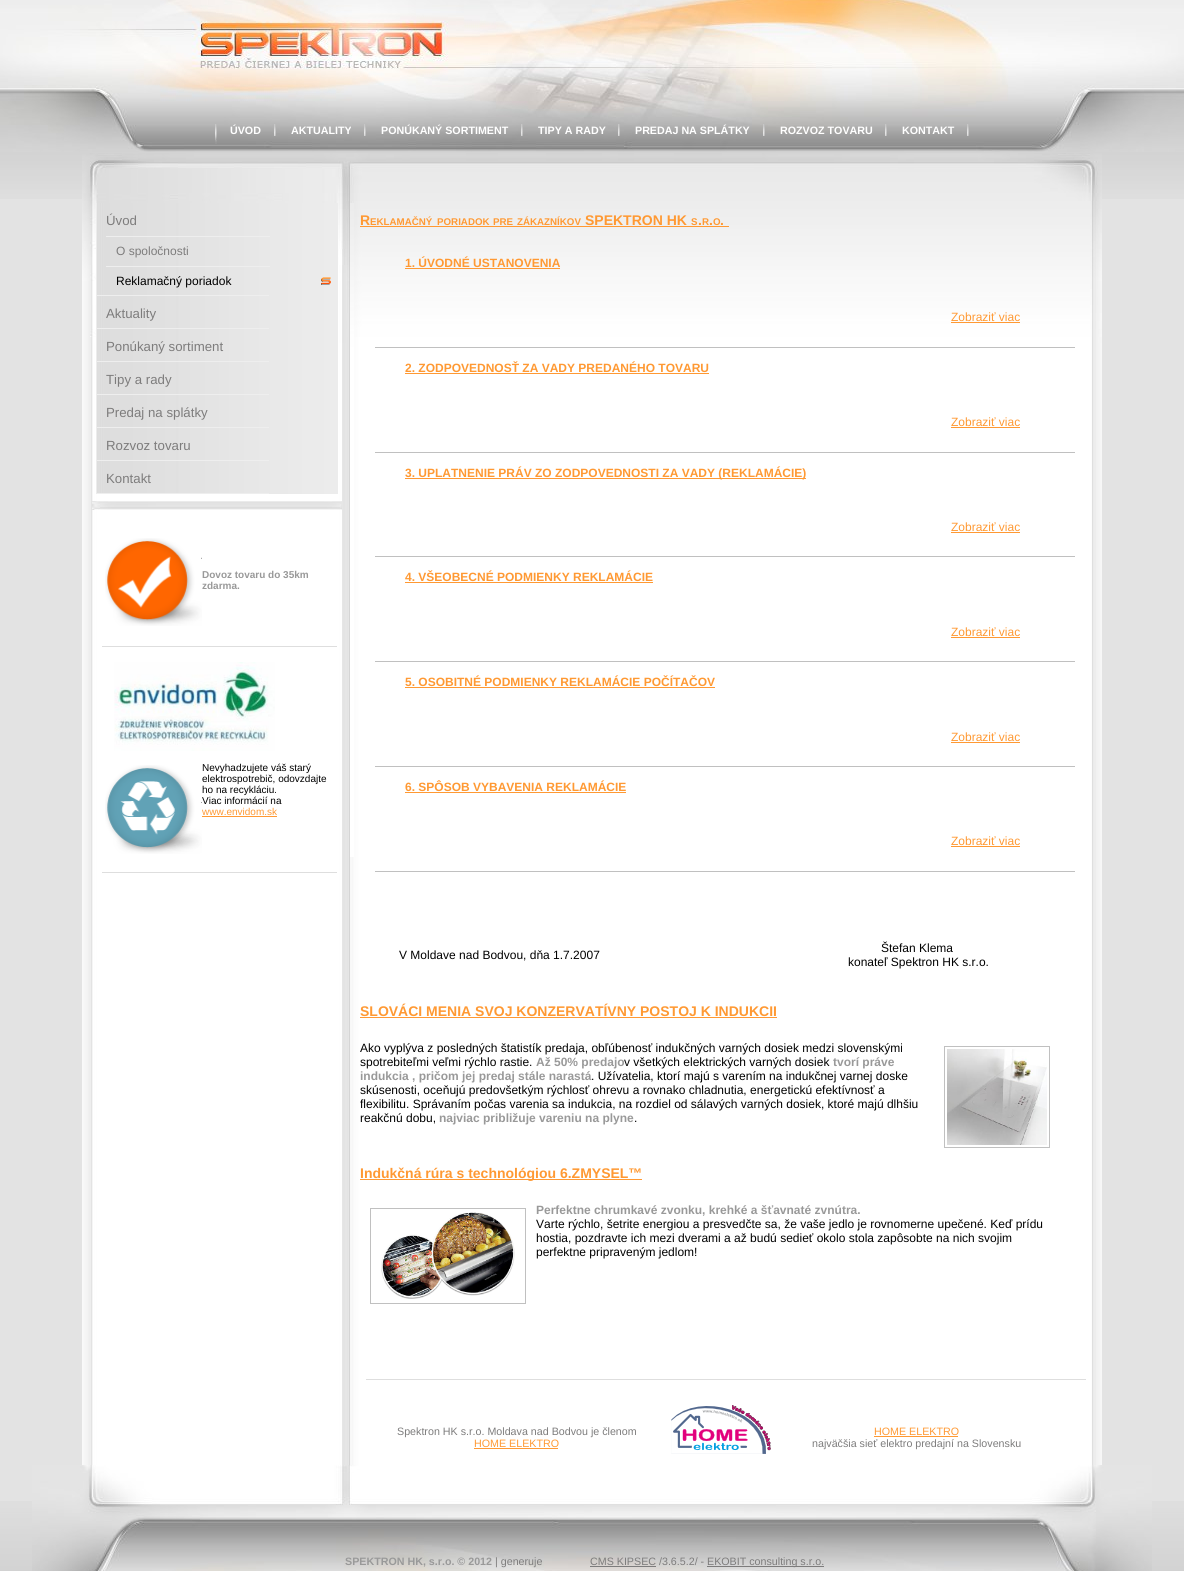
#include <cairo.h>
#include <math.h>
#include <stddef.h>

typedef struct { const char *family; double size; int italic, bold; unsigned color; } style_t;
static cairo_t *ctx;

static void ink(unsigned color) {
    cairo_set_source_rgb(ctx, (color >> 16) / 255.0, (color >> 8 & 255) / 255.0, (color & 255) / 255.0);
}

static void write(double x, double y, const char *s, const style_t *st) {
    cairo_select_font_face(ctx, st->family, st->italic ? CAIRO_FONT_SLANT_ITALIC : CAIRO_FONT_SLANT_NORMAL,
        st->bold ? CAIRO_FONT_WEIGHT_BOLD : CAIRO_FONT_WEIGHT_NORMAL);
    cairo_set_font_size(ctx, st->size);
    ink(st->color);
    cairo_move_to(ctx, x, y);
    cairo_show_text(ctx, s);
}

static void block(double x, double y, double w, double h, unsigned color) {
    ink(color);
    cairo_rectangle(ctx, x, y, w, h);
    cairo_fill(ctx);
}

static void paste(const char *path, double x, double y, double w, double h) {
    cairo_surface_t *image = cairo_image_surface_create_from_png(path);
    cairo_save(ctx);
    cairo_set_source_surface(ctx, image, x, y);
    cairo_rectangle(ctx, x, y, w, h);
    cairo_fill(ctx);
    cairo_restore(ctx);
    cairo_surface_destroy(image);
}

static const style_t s1 = {"Liberation Sans", 10.7, 0, 1, 0xffffff};
static const style_t s2 = {"Liberation Sans", 13.25, 0, 0, 0x7d7c7c};
static const style_t s3 = {"Liberation Sans", 12, 0, 0, 0x7d7c7c};
static const style_t s4 = {"Liberation Sans", 12, 0, 0, 0x000000};
static const style_t s5 = {"Liberation Sans", 10, 0, 1, 0x999999};
static const style_t s6 = {"Liberation Sans", 10, 0, 0, 0x000000};
static const style_t s7 = {"Liberation Sans", 10, 0, 0, 0xff9933};
static const style_t s8 = {"Liberation Sans", 14, 0, 1, 0xff9933};
static const style_t s9 = {"Liberation Sans", 9.75, 0, 1, 0xff9933};
static const style_t s10 = {"Liberation Sans", 12, 0, 1, 0xff9933};
static const style_t s11 = {"Liberation Sans", 12, 0, 0, 0xff9933};
static const style_t s12 = {"Liberation Sans", 12, 0, 1, 0x999999};
static const style_t s13 = {"Liberation Sans", 10.7, 0, 0, 0x7d7c7c};
static const style_t s14 = {"Liberation Sans", 10.7, 0, 0, 0xff9933};
static const style_t s15 = {"Liberation Sans", 10.7, 0, 1, 0x999999};

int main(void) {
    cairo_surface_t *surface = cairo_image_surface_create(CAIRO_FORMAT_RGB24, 1184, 1571);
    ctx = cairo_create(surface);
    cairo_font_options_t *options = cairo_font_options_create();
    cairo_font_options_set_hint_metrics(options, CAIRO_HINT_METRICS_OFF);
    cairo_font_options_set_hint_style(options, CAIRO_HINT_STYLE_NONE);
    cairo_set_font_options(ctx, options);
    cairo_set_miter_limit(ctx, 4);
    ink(0xe3e3e3);
    cairo_paint(ctx);
    paste("pic1.png", 0, 152, 1184, 47);
    paste("pic2.png", 0, 1501, 1184, 70);
    paste("pic3.png", 0, 0, 1184, 152);
    paste("pic4.png", 32, 1465, 1120, 106);
    paste("pic5.png", 215, 124, 2, 20);
    write(230, 134, "ÚVOD", &s1);
    paste("pic6.png", 274, 124, 2, 12);
    write(291, 134, "AKTUALITY", &s1);
    paste("pic6.png", 364, 124, 2, 12);
    write(381, 134, "PONÚKANÝ SORTIMENT", &s1);
    paste("pic6.png", 521, 124, 2, 12);
    write(538, 134, "TIPY A RADY", &s1);
    paste("pic6.png", 618, 124, 2, 12);
    write(635, 134, "PREDAJ NA SPLÁTKY", &s1);
    paste("pic6.png", 763, 124, 2, 12);
    write(780, 134, "ROZVOZ TOVARU", &s1);
    paste("pic6.png", 885, 124, 2, 12);
    write(902, 134, "KONTAKT", &s1);
    paste("pic6.png", 967, 124, 2, 12);
    paste("pic7.png", 82, 343, 1020, 1122);
    paste("pic8.png", 82, 153, 1020, 190);
    paste("pic9.png", 96, 203, 242, 291);
    block(97, 295, 172, 1, 0xeeeeee);
    write(106, 225, "Úvod", &s2);
    block(106, 236, 164, 1, 0xeeeeee);
    write(116, 255, "O spoločnosti", &s3);
    block(106, 266, 164, 1, 0xeeeeee);
    paste("pic10.png", 321, 277, 10, 8);
    write(116, 285, "Reklamačný poriadok", &s4);
    block(97, 328, 172, 1, 0xeeeeee);
    write(106, 318, "Aktuality", &s2);
    block(97, 361, 172, 1, 0xeeeeee);
    write(106, 351, "Ponúkaný sortiment", &s2);
    block(97, 394, 172, 1, 0xeeeeee);
    write(106, 384, "Tipy a rady", &s2);
    block(97, 427, 172, 1, 0xeeeeee);
    write(106, 417, "Predaj na splátky", &s2);
    block(97, 460, 172, 1, 0xeeeeee);
    write(106, 450, "Rozvoz tovaru", &s2);
    block(97, 493, 172, 1, 0xeeeeee);
    write(106, 483, "Kontakt", &s2);
    paste("pic11.png", 92, 501, 250, 9);
    block(102, 646, 235, 1, 0xdedede);
    paste("pic12.png", 105, 538, 97, 88);
    write(202, 578, "Dovoz tovaru do 35km", &s5);
    write(202, 589, "zdarma.", &s5);
    block(102, 872, 235, 1, 0xdedede);
    paste("pic13.png", 114, 662, 161, 89);
    paste("pic14.png", 105, 765, 97, 89);
    write(202, 771, "Nevyhadzujete váš starý", &s6);
    write(202, 782, "elektrospotrebič, odovzdajte", &s6);
    write(202, 793, "ho na recykláciu.", &s6);
    write(202, 804, "Viac informácií na", &s6);
    write(202, 815, "www.envidom.sk", &s7);
    block(202, 816, 75, 1, 0xff9933);
    paste("pic15.png", 350, 203, 4, 654);
    write(360, 225, "R", &s8);
    write(370, 225, "EKLAMAČNÝ", &s9);
    write(437, 225, "PORIADOK", &s9);
    write(493, 225, "PRE", &s9);
    write(517, 225, "ZÁKAZNÍKOV", &s9);
    write(585, 225, "SPEKTRON HK", &s8);
    write(691, 225, "S", &s9);
    write(698, 225, ".", &s8);
    block(360, 226, 369, 1, 0xff9933);
    write(702, 225, "R", &s9);
    write(709, 225, ".", &s8);
    write(713, 225, "O", &s9);
    write(720, 225, ".", &s8);
    block(375, 347, 700, 1, 0xc0c0c0);
    write(405, 267, "1. ÚVODNÉ USTANOVENIA", &s10);
    block(405, 268, 155, 1, 0xff9933);
    write(951, 321, "Zobraziť viac", &s11);
    block(951, 322, 69, 1, 0xff9933);
    block(375, 452, 700, 1, 0xc0c0c0);
    write(405, 372, "2. ZODPOVEDNOSŤ ZA VADY PREDANÉHO TOVARU", &s10);
    block(405, 373, 304, 1, 0xff9933);
    write(951, 426, "Zobraziť viac", &s11);
    block(951, 427, 69, 1, 0xff9933);
    block(375, 556, 700, 1, 0xc0c0c0);
    block(405, 478, 401, 1, 0xff9933);
    write(405, 477, "3. UPLATNENIE PRÁV ZO ZODPOVEDNOSTI ZA VADY (REKLAMÁCIE)", &s10);
    write(951, 531, "Zobraziť viac", &s11);
    block(951, 532, 69, 1, 0xff9933);
    block(375, 661, 700, 1, 0xc0c0c0);
    write(405, 581, "4. VŠEOBECNÉ PODMIENKY REKLAMÁCIE", &s10);
    block(405, 582, 248, 1, 0xff9933);
    write(951, 636, "Zobraziť viac", &s11);
    block(951, 637, 69, 1, 0xff9933);
    block(375, 766, 700, 1, 0xc0c0c0);
    write(405, 686, "5. OSOBITNÉ PODMIENKY REKLAMÁCIE POČÍTAČOV", &s10);
    block(405, 687, 310, 1, 0xff9933);
    write(951, 741, "Zobraziť viac", &s11);
    block(951, 742, 69, 1, 0xff9933);
    block(375, 871, 700, 1, 0xc0c0c0);
    write(405, 791, "6. SPÔSOB VYBAVENIA REKLAMÁCIE", &s10);
    block(405, 792, 221, 1, 0xff9933);
    write(951, 845, "Zobraziť viac", &s11);
    block(951, 846, 69, 1, 0xff9933);
    write(399, 959, "V Moldave nad Bodvou, dňa 1.7.2007", &s4);
    write(881, 952, "Štefan Klema", &s4);
    write(848, 966, "konateľ Spektron HK s.r.o.", &s4);
    write(360, 1016, "SLOVÁCI MENIA SVOJ KONZERVATÍVNY POSTOJ K INDUKCII", &s8);
    block(360, 1017, 417, 1, 0xff9933);
    write(360, 1052, "Ako vyplýva z posledných štatistík predaja, obľúbenosť indukčných varných dosiek medzi slovenskými", &s4);
    cairo_rectangle(ctx, 944.5, 1046.5, 105, 101);
    ink(0xc0c0c0);
    cairo_set_line_width(ctx, 1);
    cairo_stroke(ctx);
    paste("pic16.png", 947, 1049, 100, 96);
    write(360, 1066, "spotrebiteľmi veľmi rýchlo rastie.", &s4);
    write(536, 1066, "Až 50% predajo", &s12);
    write(624, 1066, "v všetkých elektrických varných dosiek", &s4);
    write(833, 1066, "tvorí práve", &s12);
    write(360, 1080, "indukcia , pričom jej predaj stále narastá", &s12);
    write(591, 1080, ". Užívatelia, ktorí majú s varením na indukčnej varnej doske", &s4);
    write(360, 1094, "skúsenosti, oceňujú predovšetkým rýchlosť ohrevu a rovnako chladnutia, energetickú efektívnosť a", &s4);
    write(360, 1108, "flexibilitu. Správaním počas varenia sa indukcia, na rozdiel od sálavých varných dosiek, ktoré majú dlhšiu", &s4);
    write(360, 1122, "reakčnú dobu,", &s4);
    write(439, 1122, "najviac približuje vareniu na plyne", &s12);
    write(634, 1122, ".", &s4);
    block(360, 1179, 282, 1, 0xff9933);
    write(360, 1178, "Indukčná rúra s technológiou 6.ZMYSEL™", &s8);
    cairo_rectangle(ctx, 370.5, 1208.5, 155, 95);
    ink(0xc0c0c0);
    cairo_stroke(ctx);
    paste("pic17.png", 381, 1212, 134, 87);
    write(536, 1214, "Perfektne chrumkavé zvonku, krehké a šťavnaté zvnútra.", &s12);
    write(536, 1228, "Varte rýchlo, šetrite energiou a presvedčte sa, že vaše jedlo je rovnomerne upečené. Keď prídu", &s4);
    write(536, 1242, "hostia, pozdravte ich mezi dverami a až budú sedieť okolo stola zapôsobte na nich svojim", &s4);
    write(536, 1256, "perfektne pripraveným jedlom!", &s4);
    block(366, 1379, 720, 1, 0xdedede);
    write(397, 1435, "Spektron HK s.r.o. Moldava nad Bodvou je členom", &s13);
    write(474, 1447, "HOME ELEKTRO", &s14);
    block(474, 1448, 84, 1, 0xff9933);
    paste("pic18.png", 671, 1405, 100, 49);
    write(874, 1435, "HOME ELEKTRO", &s14);
    block(874, 1436, 84, 1, 0xff9933);
    write(812, 1447, "najväčšia sieť elektro predajní na Slovensku", &s13);
    write(345, 1565, "SPEKTRON HK, s.r.o. © 2012", &s15);
    write(495, 1565, "| generuje", &s13);
    write(590, 1565, "CMS KIPSEC /3.6.5.2/ -", &s13);
    block(590, 1566, 66, 1, 0x7d7c7c);
    block(707, 1566, 117, 1, 0x7d7c7c);
    write(707, 1565, "EKOBIT consulting s.r.o.", &s13);
    cairo_surface_write_to_png(surface, "screenshot.png");
    cairo_font_options_destroy(options);
    cairo_destroy(ctx);
    cairo_surface_destroy(surface);
    return 0;
}
